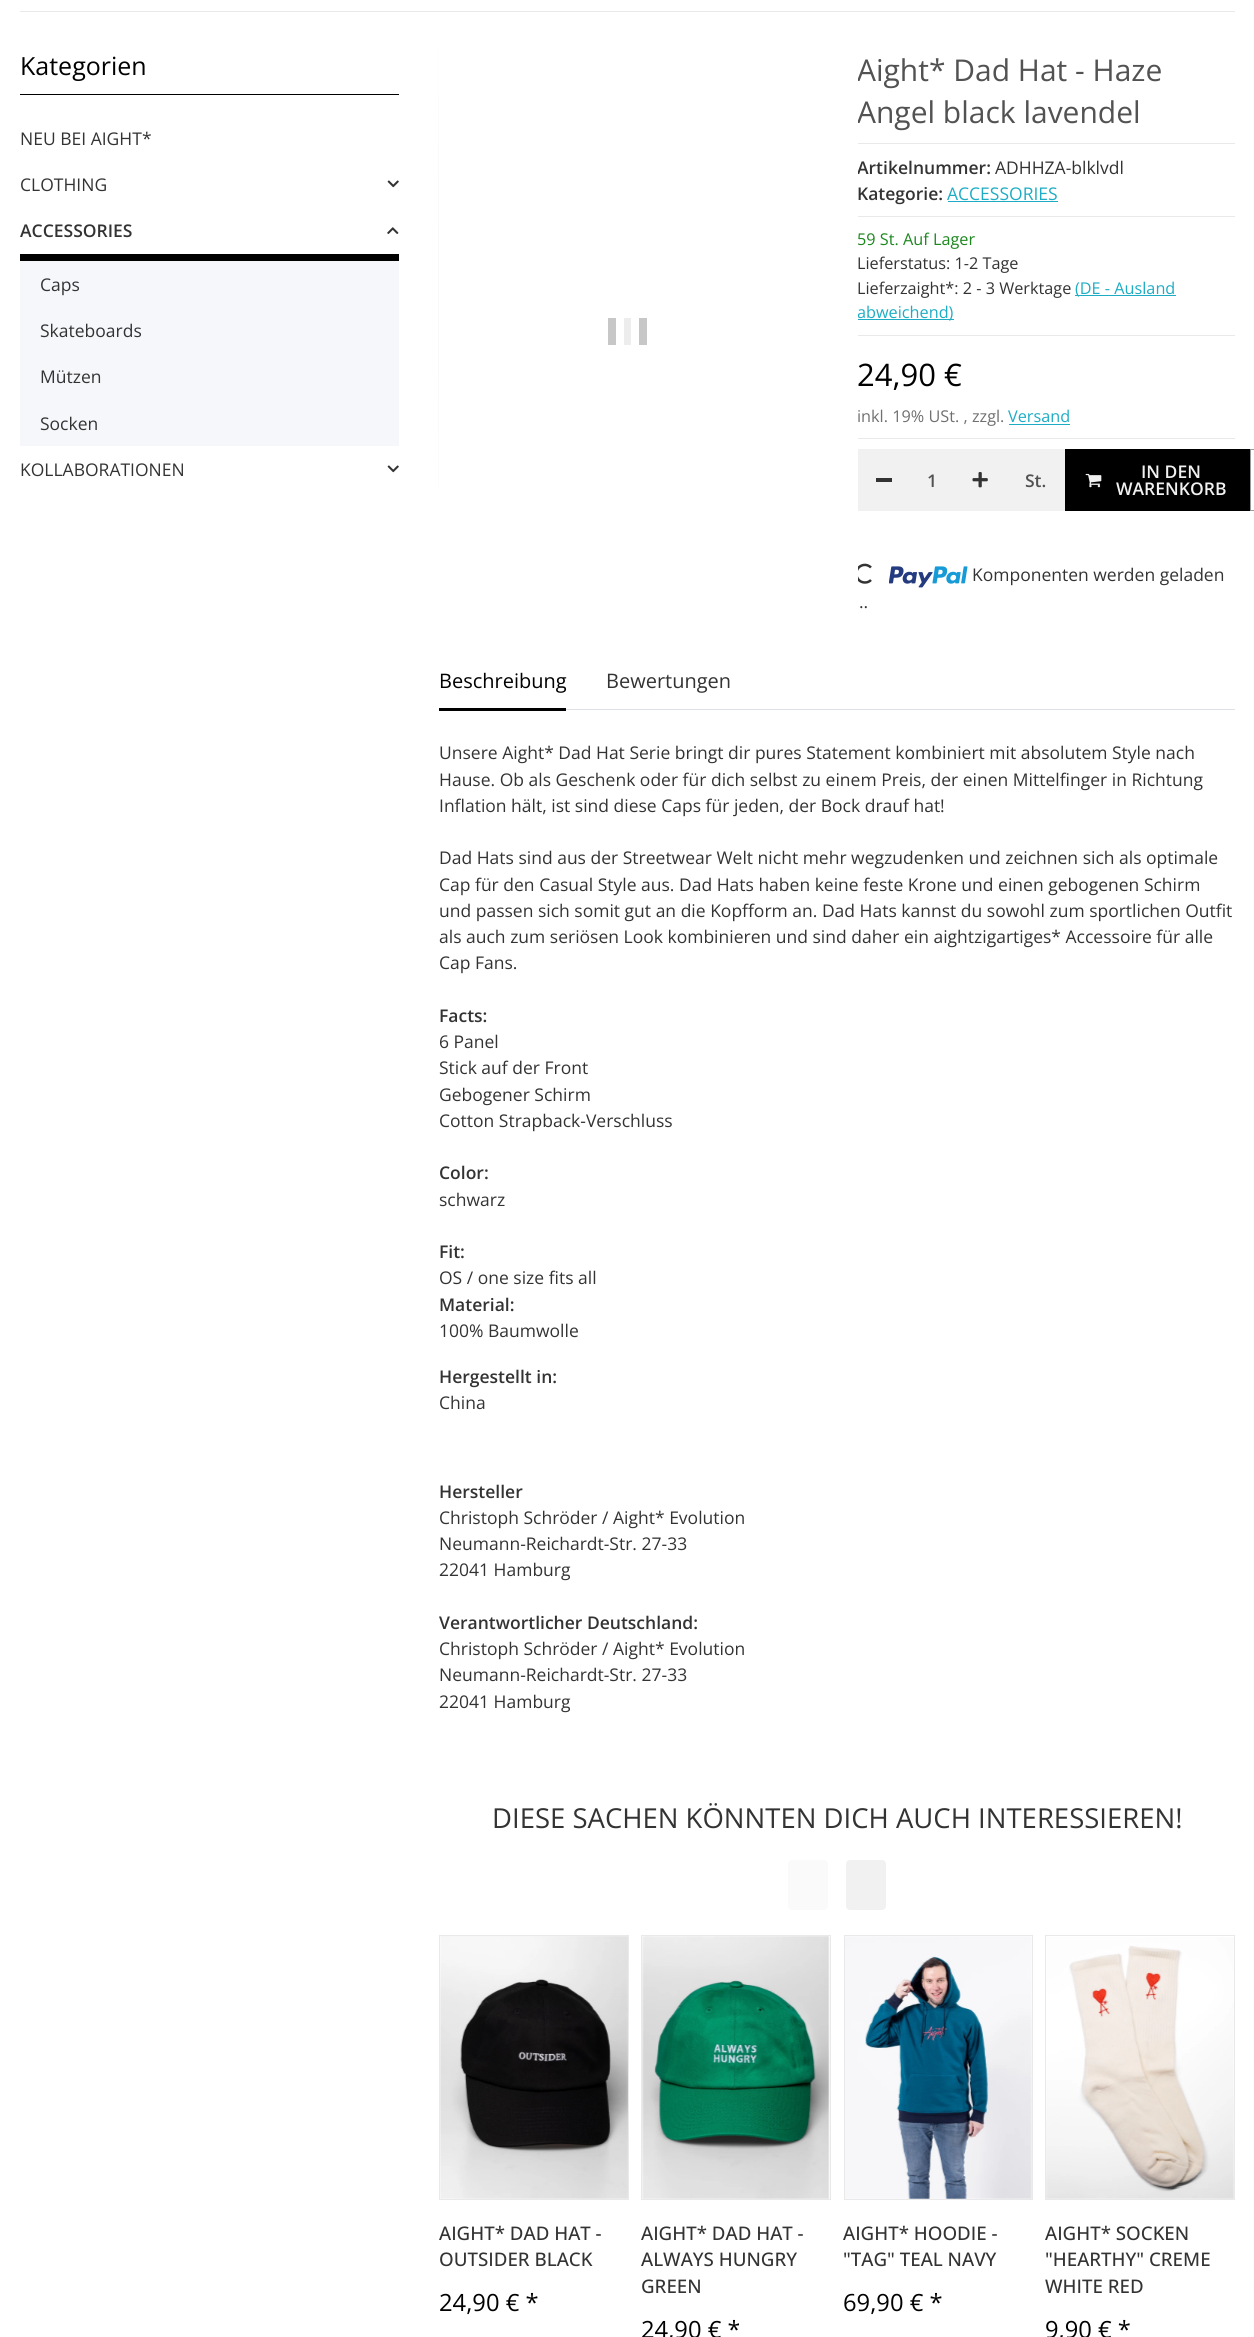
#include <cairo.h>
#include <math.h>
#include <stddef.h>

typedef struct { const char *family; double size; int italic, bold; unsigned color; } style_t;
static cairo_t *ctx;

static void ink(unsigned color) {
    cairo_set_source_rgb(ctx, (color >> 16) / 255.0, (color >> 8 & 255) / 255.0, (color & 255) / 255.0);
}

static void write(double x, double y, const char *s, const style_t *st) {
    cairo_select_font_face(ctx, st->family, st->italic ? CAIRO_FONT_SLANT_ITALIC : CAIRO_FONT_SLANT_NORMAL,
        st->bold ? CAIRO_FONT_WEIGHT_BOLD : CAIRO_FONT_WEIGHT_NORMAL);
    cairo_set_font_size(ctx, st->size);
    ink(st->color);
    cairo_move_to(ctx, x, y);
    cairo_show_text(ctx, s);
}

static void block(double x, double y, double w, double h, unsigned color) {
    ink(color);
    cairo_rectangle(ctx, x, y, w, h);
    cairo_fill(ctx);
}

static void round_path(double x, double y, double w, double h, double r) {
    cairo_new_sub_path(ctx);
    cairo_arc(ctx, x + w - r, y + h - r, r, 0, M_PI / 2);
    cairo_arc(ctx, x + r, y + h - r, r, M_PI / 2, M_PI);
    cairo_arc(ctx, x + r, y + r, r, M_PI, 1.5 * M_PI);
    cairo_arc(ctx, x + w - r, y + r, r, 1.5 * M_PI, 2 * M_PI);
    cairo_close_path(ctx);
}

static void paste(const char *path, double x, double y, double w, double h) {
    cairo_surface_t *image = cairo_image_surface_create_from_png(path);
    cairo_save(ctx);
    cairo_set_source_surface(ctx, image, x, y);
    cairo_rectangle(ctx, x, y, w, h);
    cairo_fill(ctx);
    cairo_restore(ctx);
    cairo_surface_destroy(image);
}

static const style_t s1 = {"Open Sans", 25, 0, 0, 0x000000};
static const style_t s2 = {"Open Sans", 17.5, 0, 0, 0x333333};
static const style_t s3 = {"Open Sans SemiBold", 17.5, 0, 0, 0x333333};
static const style_t s4 = {"Open Sans", 30, 0, 0, 0x525252};
static const style_t s5 = {"Open Sans", 16.25, 0, 0, 0x1c871e};
static const style_t s6 = {"Open Sans", 16.25, 0, 0, 0x1dacc3};
static const style_t s7 = {"Open Sans", 17.5, 0, 0, 0x1dacc3};
static const style_t s8 = {"Open Sans", 16.25, 0, 0, 0x333333};
static const style_t s9 = {"Open Sans", 31, 0, 0, 0x000000};
static const style_t s10 = {"Open Sans", 16.25, 0, 0, 0x707070};
static const style_t s11 = {"Open Sans SemiBold", 17.5, 0, 0, 0x525252};
static const style_t s12 = {"Open Sans SemiBold", 17.5, 0, 0, 0xf1f1f1};
static const style_t s13 = {"Open Sans", 20, 0, 0, 0x000000};
static const style_t s14 = {"Open Sans", 20, 0, 0, 0x333333};
static const style_t s15 = {"Open Sans", 27.5, 0, 0, 0x333333};
static const style_t s16 = {"Open Sans Medium", 18.75, 0, 0, 0x333333};
static const style_t s17 = {"Open Sans", 23.75, 0, 0, 0x000000};

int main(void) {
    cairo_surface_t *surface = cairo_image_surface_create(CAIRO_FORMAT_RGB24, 1254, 2337);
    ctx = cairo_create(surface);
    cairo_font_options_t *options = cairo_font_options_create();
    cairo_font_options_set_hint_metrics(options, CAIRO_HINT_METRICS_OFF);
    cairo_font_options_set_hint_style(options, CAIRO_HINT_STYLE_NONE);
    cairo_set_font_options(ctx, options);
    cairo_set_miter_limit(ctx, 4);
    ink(0xffffff);
    cairo_paint(ctx);
    block(20, 11, 1215, 1, 0xe9e9e9);
    block(20, 94, 379, 1, 0x000000);
    write(20, 75, "Kategorien", &s1);
    write(20, 145, "NEU BEI AIGHT*", &s2);
    write(20, 191, "CLOTHING", &s2);
    paste("pic1.png", 387, 180, 12, 8);
    block(20, 254, 379, 7, 0x000000);
    write(20, 237, "ACCESSORIES", &s3);
    paste("pic2.png", 387, 227, 12, 7);
    block(20, 261, 379, 185, 0xf5f7fa);
    write(40, 291, "Caps", &s2);
    write(40, 337, "Skateboards", &s2);
    write(40, 383, "Mützen", &s2);
    write(40, 430, "Socken", &s2);
    write(20, 476, "KOLLABORATIONEN", &s2);
    paste("pic1.png", 387, 465, 12, 8);
    paste("pic3.png", 438, 49, 1, 439);
    block(608, 318, 8, 27, 0xc7c7c7);
    block(624, 318, 7, 27, 0xededed);
    block(639, 318, 8, 27, 0xc7c7c7);
    write(857, 81, "Aight* Dad Hat - Haze", &s4);
    write(857, 123, "Angel black lavendel", &s4);
    write(857, 174, "Artikelnummer:", &s3);
    write(857, 245, "59 St. Auf Lager", &s5);
    block(858, 319, 96, 1, 0x1dacc3);
    write(857, 318, "abweichend)", &s6);
    cairo_new_path(ctx);
    cairo_move_to(ctx, 871, 580);
    cairo_curve_to(ctx, 869.5, 581.5, 867.5, 582.5, 865, 582.5);
    cairo_curve_to(ctx, 854.5, 582.5, 853, 567, 863.5, 565);
    cairo_curve_to(ctx, 866, 564.5, 869, 565.5, 871, 567.5);
    ink(0x333333);
    cairo_set_line_width(ctx, 2.5);
    cairo_stroke(ctx);
    block(855, 78, 3, 503, 0xffffff);
    block(858, 143, 377, 1, 0xe9e9e9);
    block(858, 216, 377, 1, 0xe9e9e9);
    write(995, 174, "ADHHZA-blklvdl", &s2);
    write(857, 200, "Kategorie:", &s3);
    write(947, 200, "ACCESSORIES", &s7);
    block(948, 201, 110, 1, 0x1dacc3);
    block(858, 335, 377, 1, 0xe9e9e9);
    write(857, 269, "Lieferstatus: 1-2 Tage", &s8);
    write(857, 294, "Lieferzaight*: 2 - 3 Werktage", &s8);
    block(1075, 295, 101, 1, 0x1dacc3);
    write(1075, 294, "(DE - Ausland", &s6);
    block(858, 438, 377, 1, 0xe9e9e9);
    write(857, 386, "24,90 €", &s9);
    write(857, 422, "inkl. 19% USt. , zzgl.", &s10);
    write(1008, 422, "Versand", &s6);
    block(1009, 424, 61, 1, 0x1dacc3);
    block(858, 449, 207, 62, 0xf1f1f1);
    block(876, 478, 16, 4, 0x333333);
    write(927, 487, "1", &s11);
    paste("pic4.png", 972, 472, 16, 16);
    write(1025, 487, "St.", &s11);
    block(1065, 449, 185, 62, 0x000000);
    paste("pic5.png", 1085, 473, 17, 15);
    write(1141, 478, "IN DEN", &s12);
    write(1116, 495, "WARENKORB", &s12);
    cairo_rectangle(ctx, 1250.5, 449.5, 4, 61);
    ink(0x999999);
    cairo_set_line_width(ctx, 1);
    cairo_stroke(ctx);
    paste("pic6.png", 889, 566, 79, 22);
    write(972, 581, "Komponenten werden geladen", &s2);
    write(859, 608, "..", &s2);
    block(566, 709, 669, 1, 0xdee2e6);
    write(439, 688, "Beschreibung", &s13);
    block(439, 708, 127, 3, 0x000000);
    write(606, 688, "Bewertungen", &s14);
    write(439, 759, "Unsere Aight* Dad Hat Serie bringt dir pures Statement kombiniert mit absolutem Style nach", &s2);
    write(439, 786, "Hause. Ob als Geschenk oder für dich selbst zu einem Preis, der einen Mittelfinger in Richtung", &s2);
    write(439, 812, "Inflation hält, ist sind diese Caps für jeden, der Bock drauf hat!", &s2);
    write(439, 864, "Dad Hats sind aus der Streetwear Welt nicht mehr wegzudenken und zeichnen sich als optimale", &s2);
    write(439, 891, "Cap für den Casual Style aus. Dad Hats haben keine feste Krone und einen gebogenen Schirm", &s2);
    write(439, 917, "und passen sich somit gut an die Kopfform an. Dad Hats kannst du sowohl zum sportlichen Outfit", &s2);
    write(439, 943, "als auch zum seriösen Look kombinieren und sind daher ein aightzigartiges* Accessoire für alle", &s2);
    write(439, 969, "Cap Fans.", &s2);
    write(439, 1022, "Facts:", &s3);
    write(439, 1048, "6 Panel", &s2);
    write(439, 1074, "Stick auf der Front", &s2);
    write(439, 1101, "Gebogener Schirm", &s2);
    write(439, 1127, "Cotton Strapback-Verschluss", &s2);
    write(439, 1179, "Color:", &s3);
    write(439, 1206, "schwarz", &s2);
    write(439, 1258, "Fit:", &s3);
    write(439, 1284, "OS / one size fits all", &s2);
    write(439, 1311, "Material:", &s3);
    write(439, 1337, "100% Baumwolle", &s2);
    write(439, 1383, "Hergestellt in:", &s3);
    write(439, 1409, "China", &s2);
    write(439, 1498, "Hersteller", &s3);
    write(439, 1524, "Christoph Schröder / Aight* Evolution", &s2);
    write(439, 1550, "Neumann-Reichardt-Str. 27-33", &s2);
    write(439, 1576, "22041 Hamburg", &s2);
    write(439, 1629, "Verantwortlicher Deutschland:", &s3);
    write(439, 1655, "Christoph Schröder / Aight* Evolution", &s2);
    write(439, 1681, "Neumann-Reichardt-Str. 27-33", &s2);
    write(439, 1708, "22041 Hamburg", &s2);
    write(492, 1828, "DIESE SACHEN KÖNNTEN DICH AUCH INTERESSIEREN!", &s15);
    ink(0xfafafa);
    round_path(788, 1860, 40, 50, 4);
    cairo_fill(ctx);
    ink(0xf1f1f1);
    round_path(846, 1860, 40, 50, 4);
    cairo_fill(ctx);
    cairo_rectangle(ctx, 439.5, 1935.5, 189, 264);
    ink(0xe9e9e9);
    cairo_stroke(ctx);
    paste("pic7.png", 440, 1936, 188, 263);
    write(439, 2240, "AIGHT* DAD HAT -", &s16);
    write(439, 2266, "OUTSIDER BLACK", &s16);
    write(439, 2311, "24,90 € *", &s17);
    cairo_rectangle(ctx, 641.5, 1935.5, 189, 264);
    ink(0xe9e9e9);
    cairo_stroke(ctx);
    paste("pic8.png", 642, 1936, 188, 263);
    write(641, 2240, "AIGHT* DAD HAT -", &s16);
    write(641, 2266, "ALWAYS HUNGRY", &s16);
    write(641, 2293, "GREEN", &s16);
    write(641, 2338, "24,90 € *", &s17);
    cairo_rectangle(ctx, 844.5, 1935.5, 188, 264);
    ink(0xe9e9e9);
    cairo_stroke(ctx);
    paste("pic9.png", 845, 1936, 187, 263);
    write(843, 2240, "AIGHT* HOODIE -", &s16);
    write(843, 2266, "\"TAG\" TEAL NAVY", &s16);
    write(843, 2311, "69,90 € *", &s17);
    cairo_rectangle(ctx, 1045.5, 1935.5, 189, 264);
    ink(0xe9e9e9);
    cairo_stroke(ctx);
    paste("pic10.png", 1046, 1937, 188, 262);
    write(1045, 2240, "AIGHT* SOCKEN", &s16);
    write(1045, 2266, "\"HEARTHY\" CREME", &s16);
    write(1045, 2293, "WHITE RED", &s16);
    write(1045, 2338, "9,90 € *", &s17);
    cairo_surface_write_to_png(surface, "screenshot.png");
    cairo_font_options_destroy(options);
    cairo_destroy(ctx);
    cairo_surface_destroy(surface);
    return 0;
}
